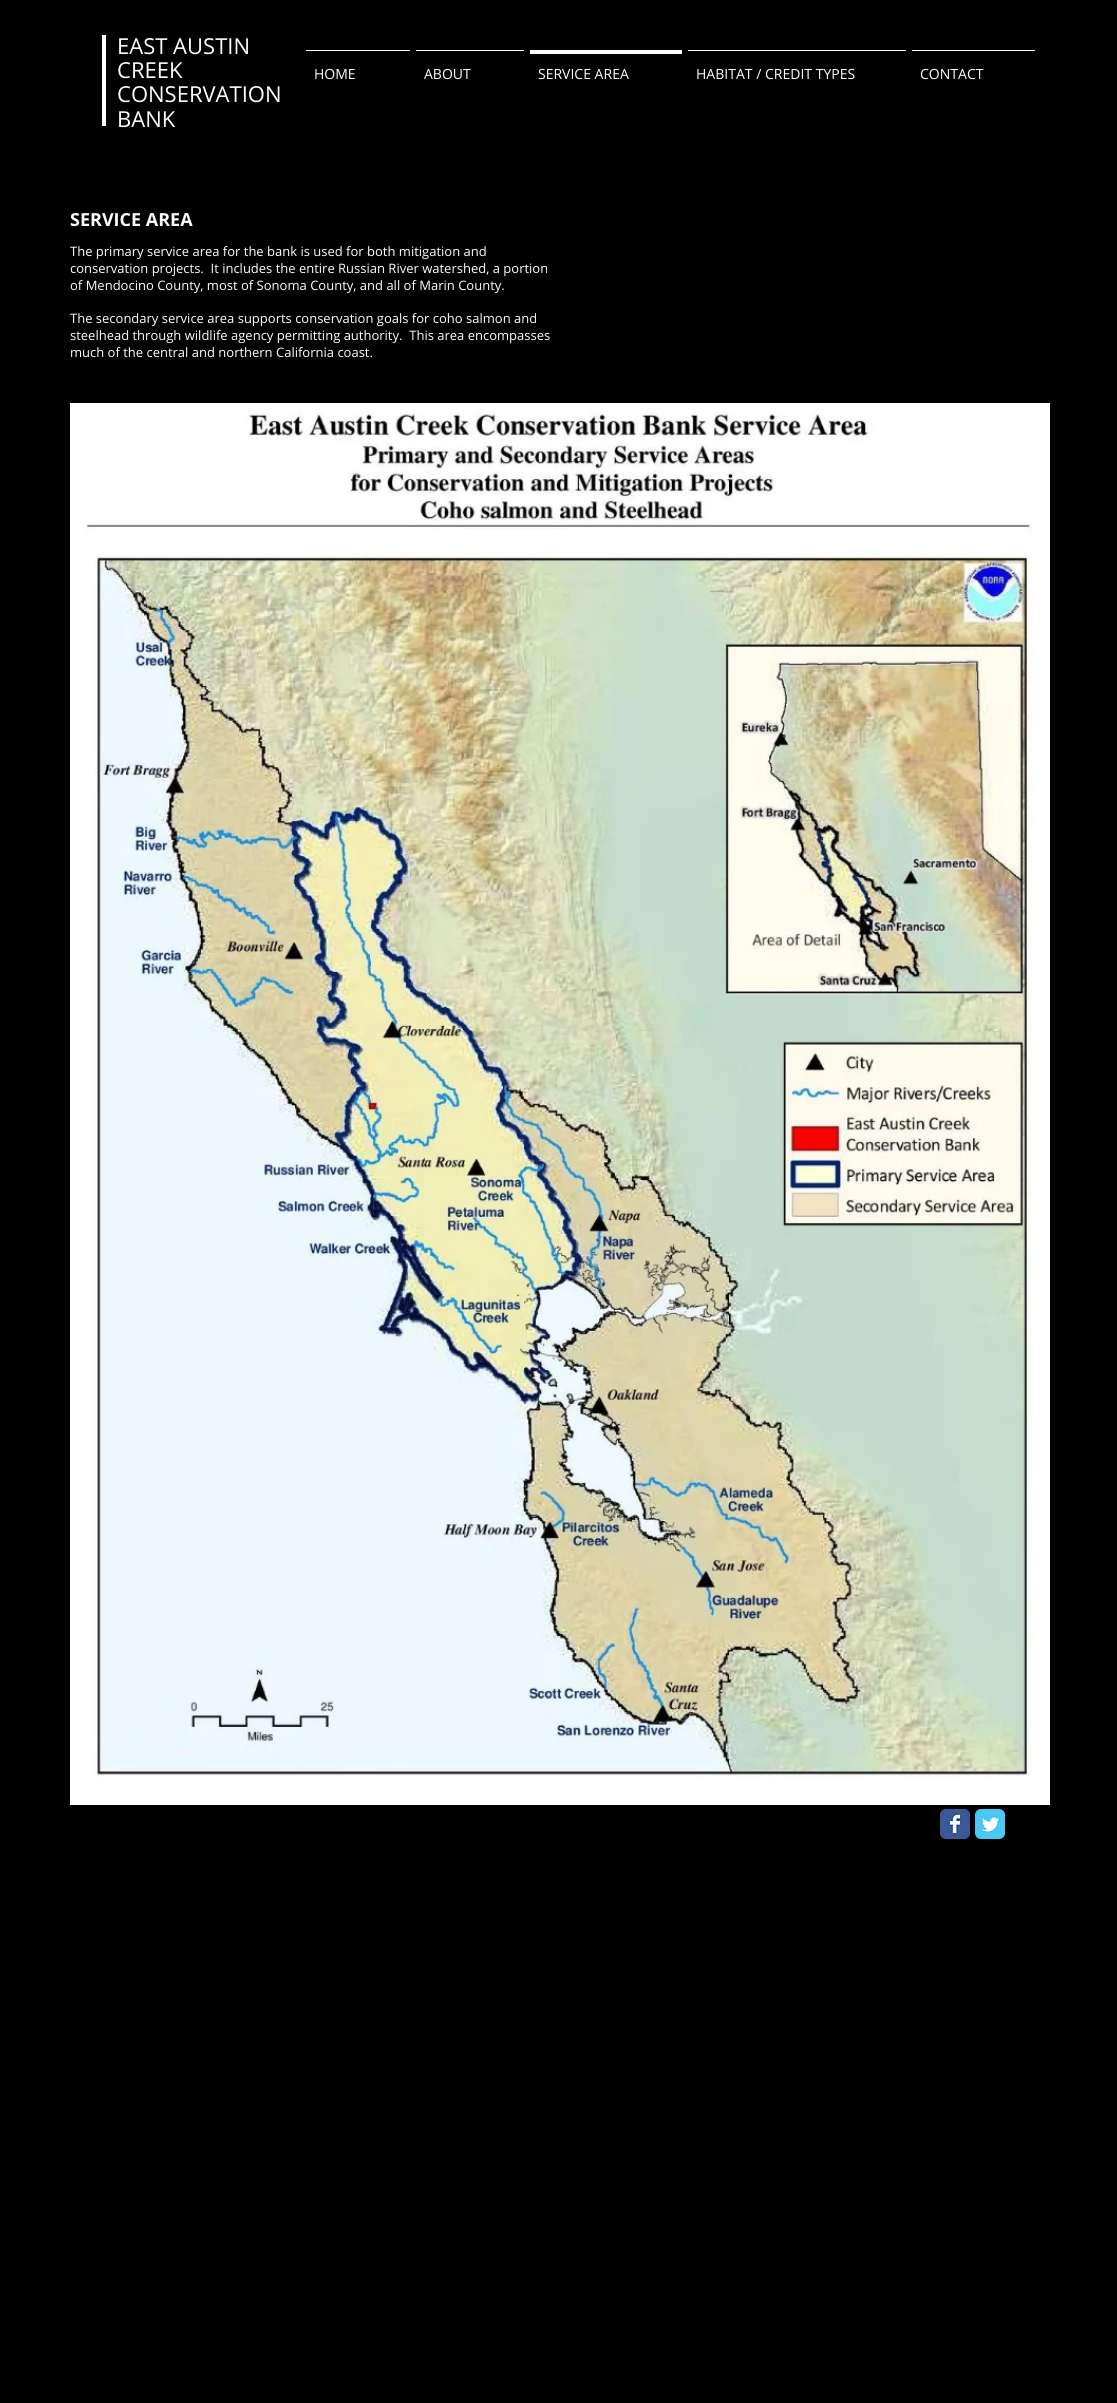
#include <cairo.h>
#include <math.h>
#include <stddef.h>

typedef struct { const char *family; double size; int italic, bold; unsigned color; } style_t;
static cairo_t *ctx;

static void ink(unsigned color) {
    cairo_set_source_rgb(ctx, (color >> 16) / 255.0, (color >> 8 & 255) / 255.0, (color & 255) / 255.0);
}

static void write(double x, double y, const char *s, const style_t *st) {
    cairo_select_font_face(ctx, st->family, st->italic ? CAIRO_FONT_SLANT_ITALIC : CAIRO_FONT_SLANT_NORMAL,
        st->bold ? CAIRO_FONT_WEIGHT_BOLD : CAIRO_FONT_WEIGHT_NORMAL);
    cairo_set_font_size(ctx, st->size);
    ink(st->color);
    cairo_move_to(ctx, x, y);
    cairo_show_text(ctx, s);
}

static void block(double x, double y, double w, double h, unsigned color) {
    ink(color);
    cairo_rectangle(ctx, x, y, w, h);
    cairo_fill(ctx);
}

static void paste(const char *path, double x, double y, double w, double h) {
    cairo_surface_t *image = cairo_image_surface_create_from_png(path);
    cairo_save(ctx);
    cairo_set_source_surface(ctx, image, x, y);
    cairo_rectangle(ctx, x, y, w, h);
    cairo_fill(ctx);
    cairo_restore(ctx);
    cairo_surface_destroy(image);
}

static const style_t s1 = {"Open Sans", 22, 0, 0, 0xffffff};
static const style_t s2 = {"Open Sans", 14, 0, 0, 0xffffff};
static const style_t s3 = {"Open Sans", 18, 0, 1, 0xffffff};
static const style_t s4 = {"Open Sans", 13, 0, 0, 0xffffff};

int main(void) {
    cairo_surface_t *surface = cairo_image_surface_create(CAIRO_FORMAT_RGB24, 1117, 2403);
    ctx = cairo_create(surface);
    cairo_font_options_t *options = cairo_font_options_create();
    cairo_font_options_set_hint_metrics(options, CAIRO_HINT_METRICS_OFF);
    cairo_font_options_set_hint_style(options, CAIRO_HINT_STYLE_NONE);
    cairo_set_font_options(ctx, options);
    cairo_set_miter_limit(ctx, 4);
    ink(0x000000);
    cairo_paint(ctx);
    block(102, 35, 4, 91, 0xffffff);
    write(117, 54, "EAST AUSTIN", &s1);
    write(117, 78, "CREEK", &s1);
    write(117, 102, "CONSERVATION", &s1);
    write(117, 127, "BANK", &s1);
    block(306, 50, 104, 1, 0xffffff);
    write(314, 79, "HOME", &s2);
    block(416, 50, 108, 1, 0xffffff);
    write(424, 79, "ABOUT", &s2);
    block(530, 50, 152, 4, 0xffffff);
    write(538, 79, "SERVICE AREA", &s2);
    block(688, 50, 218, 1, 0xffffff);
    write(696, 79, "HABITAT / CREDIT TYPES", &s2);
    block(912, 50, 123, 1, 0xffffff);
    write(920, 79, "CONTACT", &s2);
    write(70, 226, "SERVICE AREA", &s3);
    write(70, 256, "The primary service area for the bank is used for both mitigation and", &s4);
    write(70, 273, "conservation projects.  It includes the entire Russian River watershed, a portion", &s4);
    write(70, 290, "of Mendocino County, most of Sonoma County, and all of Marin County.", &s4);
    write(70, 323, "The secondary service area supports conservation goals for coho salmon and", &s4);
    write(70, 340, "steelhead through wildlife agency permitting authority.  This area encompasses", &s4);
    write(70, 357, "much of the central and northern California coast.", &s4);
    paste("pic1.png", 70, 403, 980, 1402);
    paste("pic2.png", 940, 1809, 30, 30);
    paste("pic3.png", 975, 1809, 30, 30);
    cairo_surface_write_to_png(surface, "screenshot.png");
    cairo_font_options_destroy(options);
    cairo_destroy(ctx);
    cairo_surface_destroy(surface);
    return 0;
}
